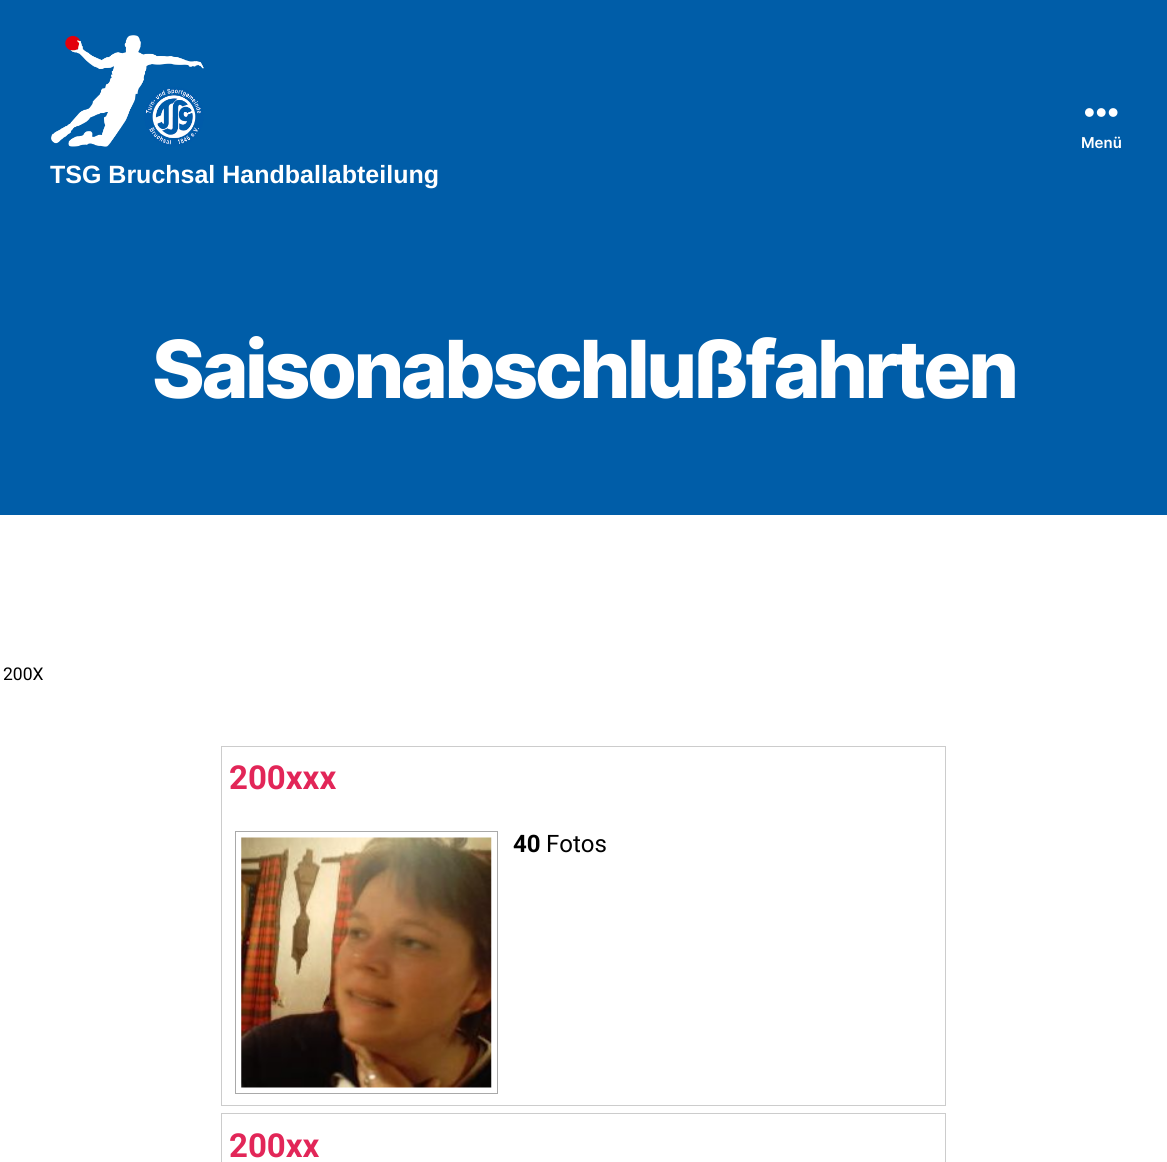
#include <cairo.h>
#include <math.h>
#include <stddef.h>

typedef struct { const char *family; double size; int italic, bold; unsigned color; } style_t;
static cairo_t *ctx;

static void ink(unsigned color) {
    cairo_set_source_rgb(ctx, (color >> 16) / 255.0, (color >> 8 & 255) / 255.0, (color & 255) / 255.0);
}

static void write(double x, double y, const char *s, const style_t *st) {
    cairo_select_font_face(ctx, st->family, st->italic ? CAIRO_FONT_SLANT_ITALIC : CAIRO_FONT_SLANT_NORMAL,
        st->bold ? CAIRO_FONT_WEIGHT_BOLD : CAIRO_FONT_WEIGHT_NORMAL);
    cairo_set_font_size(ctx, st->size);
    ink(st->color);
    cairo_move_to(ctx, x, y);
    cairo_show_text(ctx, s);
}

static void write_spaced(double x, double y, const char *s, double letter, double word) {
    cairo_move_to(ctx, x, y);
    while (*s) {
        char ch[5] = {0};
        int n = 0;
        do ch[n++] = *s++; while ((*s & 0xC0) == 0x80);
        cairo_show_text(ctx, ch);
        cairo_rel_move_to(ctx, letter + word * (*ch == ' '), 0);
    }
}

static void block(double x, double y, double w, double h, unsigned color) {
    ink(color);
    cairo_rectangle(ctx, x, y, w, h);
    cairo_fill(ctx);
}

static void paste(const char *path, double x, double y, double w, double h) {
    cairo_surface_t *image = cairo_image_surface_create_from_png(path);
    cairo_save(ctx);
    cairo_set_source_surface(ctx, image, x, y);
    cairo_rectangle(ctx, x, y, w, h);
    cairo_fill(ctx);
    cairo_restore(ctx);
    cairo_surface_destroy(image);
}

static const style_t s1 = {"Inter SemiBold", 15, 0, 0, 0xffffff};
static const style_t s2 = {"Liberation Sans", 25, 0, 1, 0xffffff};
static const style_t s3 = {"Roboto", 17.5, 0, 0, 0x000000};
static const style_t s4 = {"Roboto", 33, 0, 1, 0xe22658};
static const style_t s5 = {"Roboto", 24, 0, 1, 0x000000};
static const style_t s6 = {"Roboto", 24, 0, 0, 0x000000};

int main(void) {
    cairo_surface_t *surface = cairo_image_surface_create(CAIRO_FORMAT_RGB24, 1167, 1162);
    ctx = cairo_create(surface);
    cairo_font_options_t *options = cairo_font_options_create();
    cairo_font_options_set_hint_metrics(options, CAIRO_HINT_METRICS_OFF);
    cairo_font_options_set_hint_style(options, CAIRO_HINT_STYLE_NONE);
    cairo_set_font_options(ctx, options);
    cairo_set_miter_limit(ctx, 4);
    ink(0xffffff);
    cairo_paint(ctx);
    block(0, 0, 1167, 515, 0x005da8);
    paste("pic1.png", 1085, 108, 33, 9);
    write(1081, 148, "Menü", &s1);
    paste("pic2.png", 51, 35, 153, 112);
    write(50, 183, "TSG Bruchsal Handballabteilung", &s2);
    cairo_select_font_face(ctx, "Inter ExtraBold", CAIRO_FONT_SLANT_NORMAL, CAIRO_FONT_WEIGHT_NORMAL);
    cairo_set_font_size(ctx, 80);
    write_spaced(152, 398, "Saisonabschlußfahrten", -3.3, 0);
    write(3, 680, "200X", &s3);
    cairo_rectangle(ctx, 221.5, 746.5, 724, 359);
    ink(0xcccccc);
    cairo_set_line_width(ctx, 1);
    cairo_stroke(ctx);
    write(229, 789, "200xxx", &s4);
    cairo_rectangle(ctx, 235.5, 831.5, 262, 262);
    ink(0xa9a9a9);
    cairo_stroke(ctx);
    paste("pic3.png", 241, 837, 251, 251);
    write(513, 852, "40", &s5);
    write(546, 852, "Fotos", &s6);
    cairo_rectangle(ctx, 221.5, 1113.5, 724, 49);
    ink(0xcccccc);
    cairo_stroke(ctx);
    write(229, 1157, "200xx", &s4);
    cairo_surface_write_to_png(surface, "screenshot.png");
    cairo_font_options_destroy(options);
    cairo_destroy(ctx);
    cairo_surface_destroy(surface);
    return 0;
}
